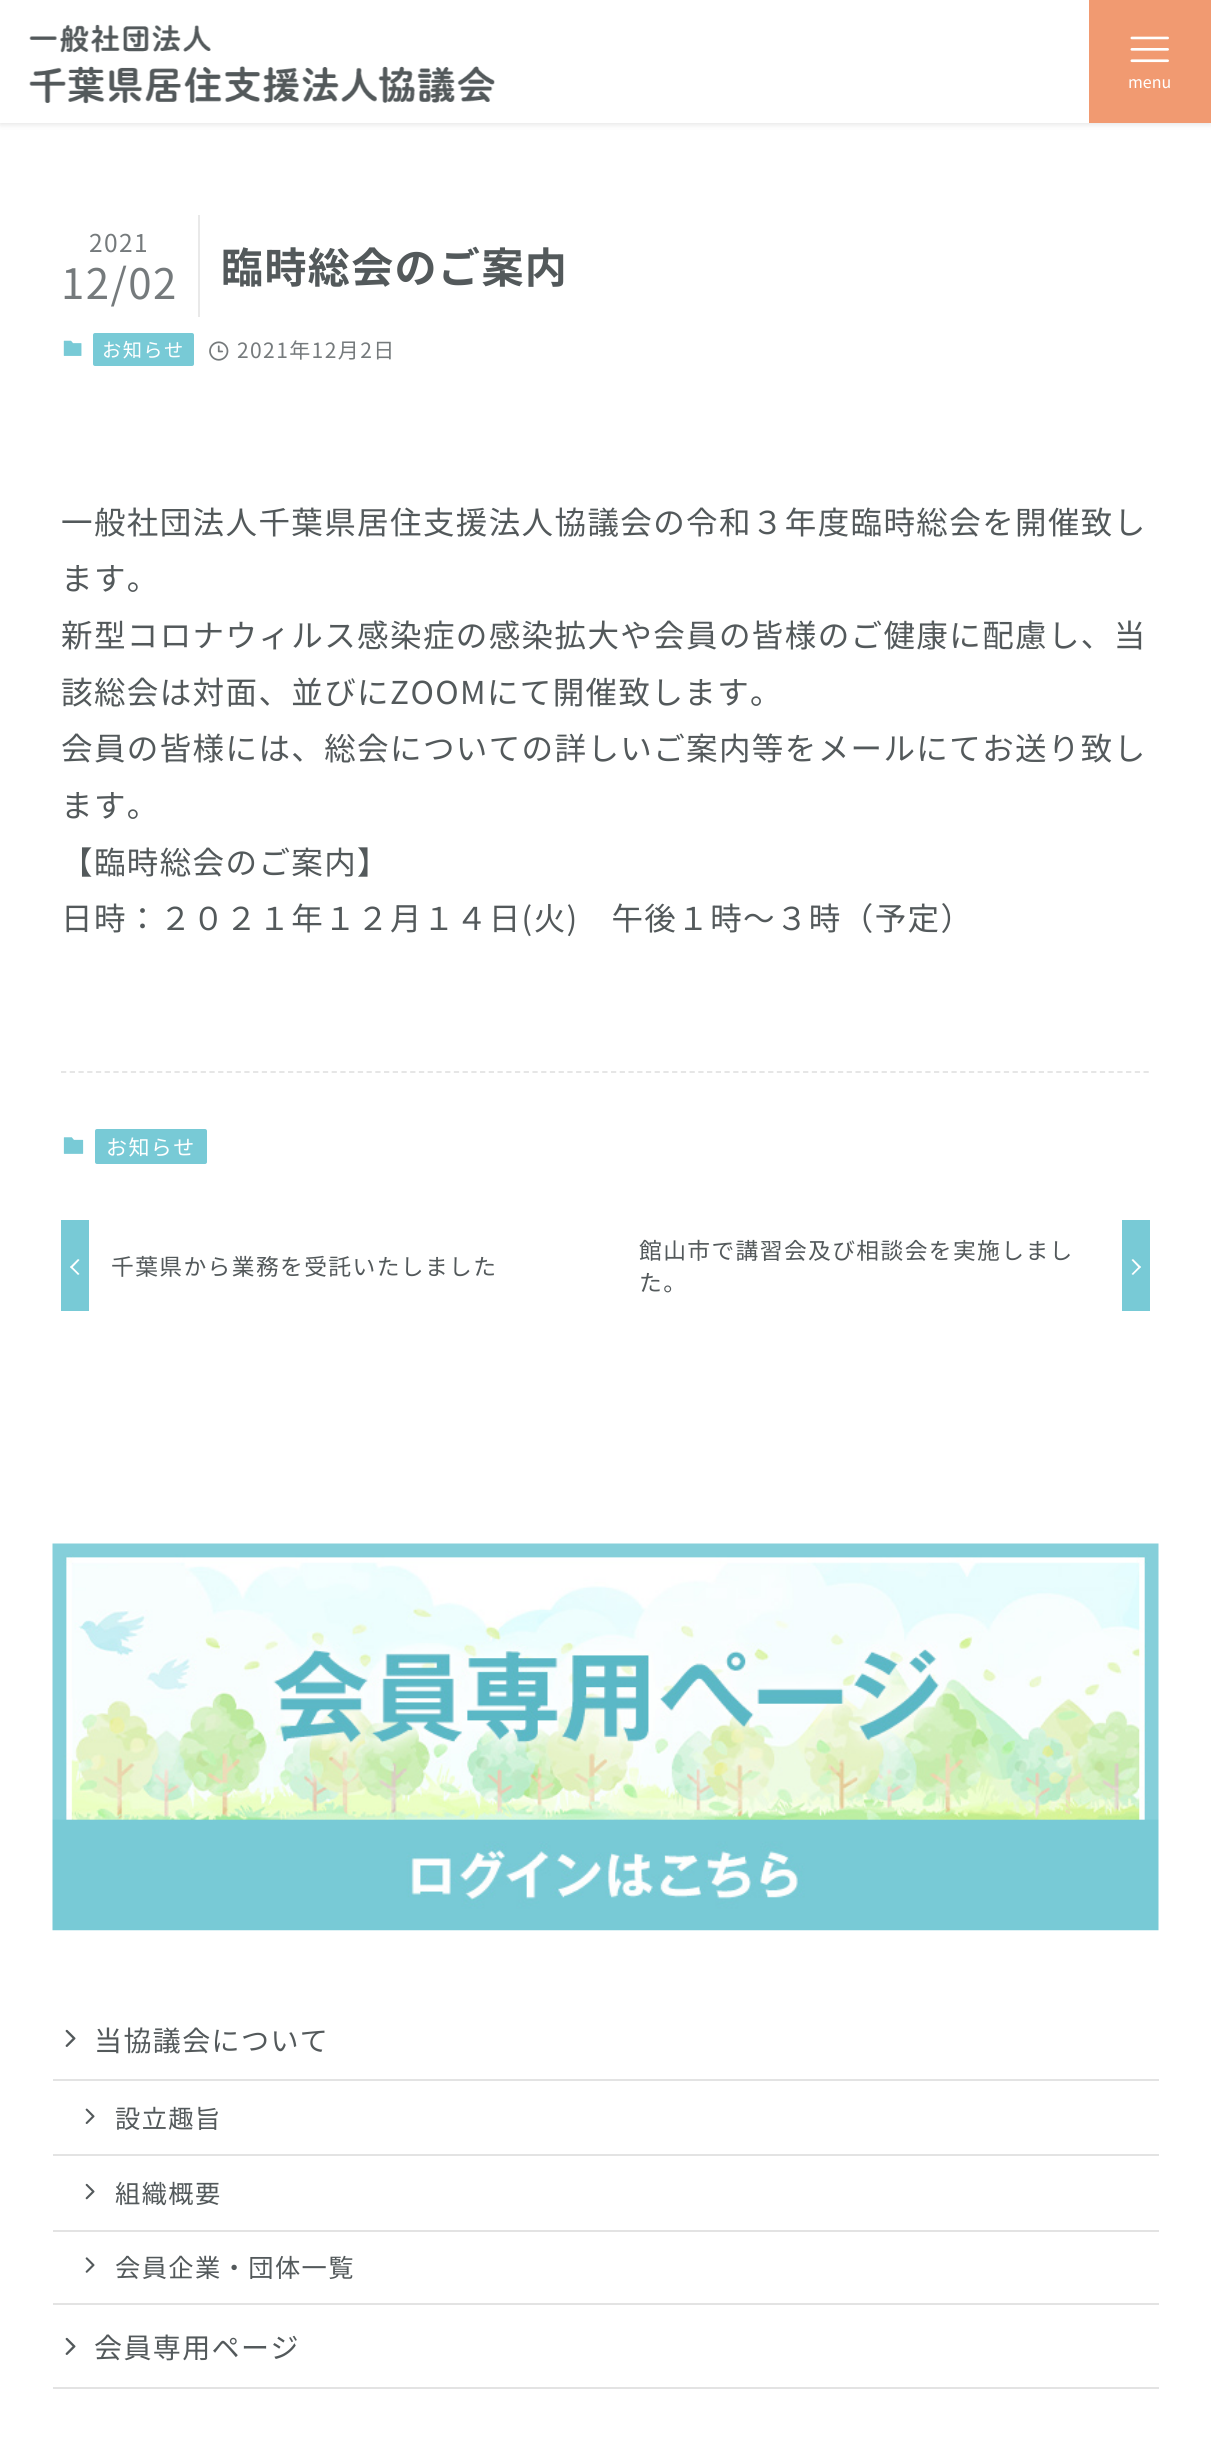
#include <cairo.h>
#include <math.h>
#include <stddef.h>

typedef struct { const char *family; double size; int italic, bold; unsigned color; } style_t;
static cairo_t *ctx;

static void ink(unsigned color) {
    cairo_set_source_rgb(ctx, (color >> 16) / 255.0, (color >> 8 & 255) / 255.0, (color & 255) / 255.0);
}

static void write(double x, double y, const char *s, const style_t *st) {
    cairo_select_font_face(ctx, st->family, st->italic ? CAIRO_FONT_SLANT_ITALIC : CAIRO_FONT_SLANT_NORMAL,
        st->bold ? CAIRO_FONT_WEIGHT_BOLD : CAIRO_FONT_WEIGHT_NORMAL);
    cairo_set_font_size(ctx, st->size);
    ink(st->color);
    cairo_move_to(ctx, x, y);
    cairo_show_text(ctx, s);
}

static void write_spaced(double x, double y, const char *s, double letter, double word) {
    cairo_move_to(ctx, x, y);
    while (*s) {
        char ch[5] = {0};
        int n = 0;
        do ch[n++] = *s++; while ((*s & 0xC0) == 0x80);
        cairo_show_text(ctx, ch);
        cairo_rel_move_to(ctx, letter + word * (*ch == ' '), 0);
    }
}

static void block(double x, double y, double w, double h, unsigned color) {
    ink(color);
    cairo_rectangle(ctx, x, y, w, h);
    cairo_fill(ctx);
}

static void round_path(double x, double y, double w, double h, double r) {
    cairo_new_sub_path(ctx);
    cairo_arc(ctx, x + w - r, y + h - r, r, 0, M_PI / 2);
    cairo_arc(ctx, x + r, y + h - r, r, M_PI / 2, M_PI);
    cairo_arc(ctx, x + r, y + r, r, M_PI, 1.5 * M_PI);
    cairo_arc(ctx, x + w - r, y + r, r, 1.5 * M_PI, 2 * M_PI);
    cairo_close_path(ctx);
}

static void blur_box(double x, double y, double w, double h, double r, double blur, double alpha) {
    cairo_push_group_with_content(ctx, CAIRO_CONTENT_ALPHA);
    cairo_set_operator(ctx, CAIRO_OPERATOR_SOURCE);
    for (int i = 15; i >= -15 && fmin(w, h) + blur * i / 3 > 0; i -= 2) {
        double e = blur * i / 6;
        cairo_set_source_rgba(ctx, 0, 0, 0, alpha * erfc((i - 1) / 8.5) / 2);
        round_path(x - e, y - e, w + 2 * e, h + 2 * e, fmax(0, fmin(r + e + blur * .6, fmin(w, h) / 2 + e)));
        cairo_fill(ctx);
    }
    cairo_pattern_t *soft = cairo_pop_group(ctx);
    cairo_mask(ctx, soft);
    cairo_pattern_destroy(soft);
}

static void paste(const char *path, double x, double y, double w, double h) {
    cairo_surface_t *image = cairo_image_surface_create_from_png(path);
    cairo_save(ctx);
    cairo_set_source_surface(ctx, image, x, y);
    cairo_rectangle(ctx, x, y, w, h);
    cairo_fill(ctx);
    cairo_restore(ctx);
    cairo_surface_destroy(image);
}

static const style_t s1 = {"Noto Sans JP", 16, 0, 0, 0xffffff};

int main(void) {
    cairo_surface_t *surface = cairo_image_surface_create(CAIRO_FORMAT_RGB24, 1211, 2448);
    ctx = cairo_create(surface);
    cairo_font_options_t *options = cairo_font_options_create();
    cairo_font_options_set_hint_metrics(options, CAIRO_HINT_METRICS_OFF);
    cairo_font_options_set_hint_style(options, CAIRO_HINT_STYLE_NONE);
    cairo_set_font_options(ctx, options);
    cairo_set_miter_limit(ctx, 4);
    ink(0xffffff);
    cairo_paint(ctx);
    ink(0x000000);
    blur_box(0, 2, 1211, 122, 0, 3.5, 0.12);
    block(0, 0, 1089, 123, 0xffffff);
    paste("pic1.png", 29, 24, 466, 80);
    block(1089, 0, 122, 123, 0xf19a71);
    paste("pic2.png", 1130, 36, 39, 27);
    write(1128, 88, "menu", &s1);
    block(198, 215, 2, 102, 0xe9e9e9);
    cairo_set_font_size(ctx, 24.5);
    ink(0x757a7c);
    write_spaced(89, 252, "2021", 1.4, 0);
    cairo_set_font_size(ctx, 42);
    write_spaced(61, 299, "12/02", 1.4, 0);
    cairo_select_font_face(ctx, "Noto Sans JP", CAIRO_FONT_SLANT_NORMAL, CAIRO_FONT_WEIGHT_BOLD);
    ink(0x53595b);
    write_spaced(221, 283, "臨時総会のご案内", 1.4, 0);
    paste("pic3.png", 63, 340, 19, 16);
    ink(0x78cad6);
    round_path(93, 333, 101, 33, 2);
    cairo_fill(ctx);
    cairo_select_font_face(ctx, "Noto Sans JP", CAIRO_FONT_SLANT_NORMAL, CAIRO_FONT_WEIGHT_NORMAL);
    cairo_set_font_size(ctx, 19.25);
    ink(0xffffff);
    write_spaced(102, 357, "お知らせ", 1.4, 0);
    paste("pic4.png", 209, 341, 20, 20);
    cairo_set_font_size(ctx, 21);
    ink(0x757a7c);
    write_spaced(237, 358, "2021年12月2日", 1.4, 0);
    cairo_set_font_size(ctx, 31.5);
    ink(0x53595b);
    write_spaced(61, 534, "一般社団法人千葉県居住支援法人協議会の令和３年度臨時総会を開催致し", 1.4, 0);
    write_spaced(61, 590, "ます。", 1.4, 0);
    write_spaced(61, 647, "新型コロナウィルス感染症の感染拡大や会員の皆様のご健康に配慮し、当", 1.4, 0);
    write_spaced(61, 704, "該総会は対面、並びにZOOMにて開催致します。", 1.4, 0);
    write_spaced(61, 760, "会員の皆様には、総会についての詳しいご案内等をメールにてお送り致し", 1.4, 0);
    write_spaced(61, 817, "ます。", 1.4, 0);
    write_spaced(61, 874, "【臨時総会のご案内】", 1.4, 0);
    write_spaced(61, 930, "日時：２０２１年１２月１４日(火)　午後１時～３時（予定）", 1.4, 0);
    cairo_new_path(ctx);
    cairo_move_to(ctx, 61, 1072);
    cairo_line_to(ctx, 1150, 1072);
    ink(0xe3e3e3);
    cairo_set_line_width(ctx, 1.8);
    cairo_set_dash(ctx, (double[]){5.25, 3.48}, 2, 0);
    cairo_stroke(ctx);
    paste("pic5.png", 63, 1137, 21, 17);
    ink(0x78cad6);
    round_path(95, 1129, 112, 35, 2);
    cairo_fill(ctx);
    cairo_set_font_size(ctx, 21);
    ink(0xffffff);
    write_spaced(106, 1155, "お知らせ", 1.4, 0);
    block(61, 1220, 28, 91, 0x78cad6);
    ink(0xffffff);
    cairo_new_path(ctx);
    cairo_move_to(ctx, 71.5, 1266);
    cairo_line_to(ctx, 79.5, 1274);
    cairo_line_to(ctx, 78, 1275);
    cairo_line_to(ctx, 70, 1267);
    cairo_close_path(ctx);
    cairo_fill(ctx);
    cairo_new_path(ctx);
    cairo_move_to(ctx, 78, 1259);
    cairo_line_to(ctx, 79.5, 1260);
    cairo_line_to(ctx, 71.5, 1268.5);
    cairo_line_to(ctx, 70, 1267);
    cairo_close_path(ctx);
    cairo_fill(ctx);
    cairo_set_font_size(ctx, 22.75);
    ink(0x53595b);
    write_spaced(111, 1275, "千葉県から業務を受託いたしました", 1.4, 0);
    block(1122, 1220, 28, 91, 0x78cad6);
    ink(0x53595b);
    write_spaced(639, 1259, "館山市で講習会及び相談会を実施しまし", 1.4, 0);
    write_spaced(639, 1291, "た。", 1.4, 0);
    ink(0xffffff);
    cairo_new_path(ctx);
    cairo_move_to(ctx, 1131.5, 1260);
    cairo_line_to(ctx, 1133, 1259);
    cairo_line_to(ctx, 1141, 1267);
    cairo_line_to(ctx, 1139.5, 1268.5);
    cairo_close_path(ctx);
    cairo_fill(ctx);
    cairo_new_path(ctx);
    cairo_move_to(ctx, 1131.5, 1274);
    cairo_line_to(ctx, 1139.5, 1266);
    cairo_line_to(ctx, 1141, 1267);
    cairo_line_to(ctx, 1133, 1275);
    cairo_close_path(ctx);
    cairo_fill(ctx);
    paste("pic6.png", 52, 1543, 1107, 388);
    block(53, 2079, 1106, 2, 0xe3e3e3);
    paste("pic7.png", 65, 2029, 11, 18);
    cairo_set_font_size(ctx, 28);
    ink(0x53595b);
    write_spaced(94, 2051, "当協議会について", 1.4, 0);
    block(53, 2154, 1106, 2, 0xe3e3e3);
    paste("pic8.png", 85, 2108, 10, 16);
    cairo_set_font_size(ctx, 25.25);
    ink(0x53595b);
    write_spaced(115, 2128, "設立趣旨", 1.4, 0);
    block(53, 2230, 1106, 2, 0xe3e3e3);
    paste("pic9.png", 85, 2183, 10, 17);
    ink(0x53595b);
    write_spaced(115, 2203, "組織概要", 1.4, 0);
    block(53, 2303, 1106, 2, 0xe3e3e3);
    paste("pic10.png", 85, 2257, 10, 16);
    ink(0x53595b);
    write_spaced(115, 2277, "会員企業・団体一覧", 1.4, 0);
    block(53, 2387, 1106, 2, 0xe3e3e3);
    paste("pic7.png", 65, 2337, 11, 18);
    cairo_set_font_size(ctx, 28);
    ink(0x53595b);
    write_spaced(94, 2358, "会員専用ページ", 1.4, 0);
    cairo_surface_write_to_png(surface, "screenshot.png");
    cairo_font_options_destroy(options);
    cairo_destroy(ctx);
    cairo_surface_destroy(surface);
    return 0;
}
